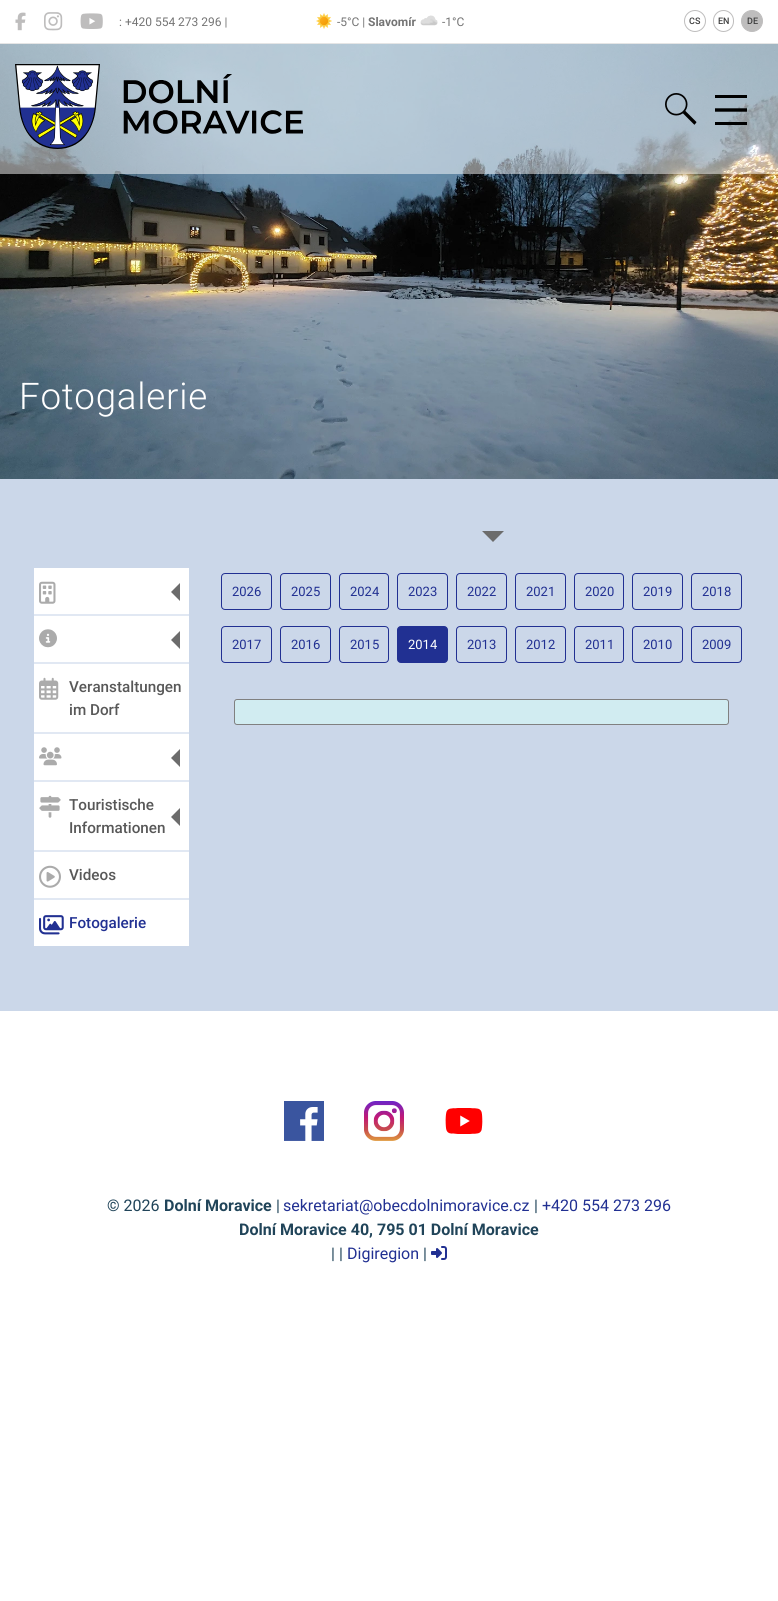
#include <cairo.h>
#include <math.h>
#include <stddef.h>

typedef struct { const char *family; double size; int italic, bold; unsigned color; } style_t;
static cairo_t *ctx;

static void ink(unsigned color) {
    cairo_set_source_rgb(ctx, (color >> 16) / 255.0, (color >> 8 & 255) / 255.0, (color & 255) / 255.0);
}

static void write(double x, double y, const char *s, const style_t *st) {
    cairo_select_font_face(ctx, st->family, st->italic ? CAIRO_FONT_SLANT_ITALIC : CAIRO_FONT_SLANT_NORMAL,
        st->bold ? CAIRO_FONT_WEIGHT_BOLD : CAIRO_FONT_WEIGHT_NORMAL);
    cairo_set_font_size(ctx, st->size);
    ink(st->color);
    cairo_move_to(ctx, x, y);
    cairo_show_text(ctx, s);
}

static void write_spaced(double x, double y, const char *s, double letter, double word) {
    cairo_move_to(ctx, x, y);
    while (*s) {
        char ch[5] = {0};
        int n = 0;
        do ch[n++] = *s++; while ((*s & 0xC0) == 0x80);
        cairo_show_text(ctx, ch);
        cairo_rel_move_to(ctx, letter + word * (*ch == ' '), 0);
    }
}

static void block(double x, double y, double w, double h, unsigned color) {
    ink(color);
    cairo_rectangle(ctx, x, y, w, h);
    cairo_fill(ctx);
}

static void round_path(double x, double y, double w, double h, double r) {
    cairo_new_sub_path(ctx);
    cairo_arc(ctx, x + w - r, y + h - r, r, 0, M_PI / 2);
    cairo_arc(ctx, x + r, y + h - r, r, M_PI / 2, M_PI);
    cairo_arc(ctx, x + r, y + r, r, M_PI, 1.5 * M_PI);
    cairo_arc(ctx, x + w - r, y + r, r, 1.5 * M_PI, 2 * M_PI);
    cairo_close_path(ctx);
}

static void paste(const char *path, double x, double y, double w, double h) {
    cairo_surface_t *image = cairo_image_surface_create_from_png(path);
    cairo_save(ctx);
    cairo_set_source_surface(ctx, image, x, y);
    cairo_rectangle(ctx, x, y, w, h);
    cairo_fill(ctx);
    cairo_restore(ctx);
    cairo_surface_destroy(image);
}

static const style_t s1 = {"Roboto", 12, 0, 0, 0x747474};
static const style_t s2 = {"Roboto", 12, 0, 1, 0x747474};
static const style_t s3 = {"Roboto Medium", 9, 0, 0, 0x3d3d3d};
static const style_t s4 = {"Roboto", 13, 0, 0, 0x213092};
static const style_t s5 = {"Roboto", 13, 0, 0, 0xffffff};
static const style_t s6 = {"Roboto Medium", 15.25, 0, 0, 0x585858};
static const style_t s7 = {"Roboto Medium", 15.25, 0, 0, 0x213092};
static const style_t s8 = {"Roboto", 16, 0, 0, 0x204459};
static const style_t s9 = {"Roboto", 16, 0, 1, 0x204459};
static const style_t s10 = {"Roboto", 16, 0, 0, 0x213092};

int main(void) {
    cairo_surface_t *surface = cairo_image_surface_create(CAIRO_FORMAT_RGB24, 778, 1601);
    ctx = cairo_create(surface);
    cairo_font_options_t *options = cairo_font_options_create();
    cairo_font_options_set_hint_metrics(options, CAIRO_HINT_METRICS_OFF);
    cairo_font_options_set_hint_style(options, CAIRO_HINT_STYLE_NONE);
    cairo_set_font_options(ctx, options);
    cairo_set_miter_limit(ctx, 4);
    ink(0xffffff);
    cairo_paint(ctx);
    block(0, 43, 778, 1, 0xe5e5e5);
    paste("pic1.png", 15, 12, 11, 19);
    paste("pic2.png", 44, 12, 19, 19);
    paste("pic3.png", 80, 13, 23, 16);
    write(119, 26, ": +420 554 273 296 |", &s1);
    paste("pic4.png", 316, 13, 16, 16);
    write(337, 26, "-5°C |", &s1);
    write(368, 26, "Slavomír", &s2);
    paste("pic5.png", 420, 15, 18, 11);
    write(442, 26, "-1°C", &s1);
    cairo_new_path(ctx);
    cairo_arc(ctx, 695, 21, 10.5, 0, 2 * M_PI);
    ink(0xbebdbd);
    cairo_set_line_width(ctx, 1);
    cairo_stroke(ctx);
    write(689, 24, "CS", &s3);
    round_path(713.5, 10.5, 20, 21, 10);
    ink(0xbebdbd);
    cairo_stroke(ctx);
    write(718, 24, "EN", &s3);
    ink(0xbebdbd);
    cairo_new_path(ctx);
    cairo_arc(ctx, 752, 21, 10.5, 0, 2 * M_PI);
    cairo_fill_preserve(ctx);
    cairo_stroke(ctx);
    write(747, 24, "DE", &s3);
    paste("pic8.png", 0, 44, 778, 435);
    cairo_set_source_rgba(ctx, 1, 1, 1, 0.5);
    cairo_rectangle(ctx, 0, 44, 778, 130);
    cairo_fill(ctx);
    paste("pic6.png", 15, 64, 288, 85);
    paste("pic7.png", 665, 93, 32, 32);
    block(715, 95, 32, 3, 0x000000);
    cairo_new_path(ctx);
    cairo_move_to(ctx, 715, 110);
    cairo_line_to(ctx, 747, 110);
    cairo_set_line_width(ctx, 3.4);
    cairo_stroke(ctx);
    block(715, 122, 32, 3, 0x000000);
    cairo_select_font_face(ctx, "Roboto Light", CAIRO_FONT_SLANT_NORMAL, CAIRO_FONT_WEIGHT_NORMAL);
    cairo_set_font_size(ctx, 36.75);
    ink(0xffffff);
    write_spaced(19, 409, "Fotogalerie", 0.75, 0);
    block(0, 479, 778, 532, 0xcbd7e9);
    ink(0x6c6c6c);
    cairo_new_path(ctx);
    cairo_move_to(ctx, 482, 531);
    cairo_line_to(ctx, 504, 531);
    cairo_line_to(ctx, 493, 542);
    cairo_close_path(ctx);
    cairo_fill(ctx);
    round_path(221.5, 573.5, 50, 36, 3.5);
    ink(0x213092);
    cairo_set_line_width(ctx, 1);
    cairo_stroke(ctx);
    write(232, 596, "2026", &s4);
    round_path(280.5, 573.5, 50, 36, 3.5);
    cairo_stroke(ctx);
    write(291, 596, "2025", &s4);
    round_path(339.5, 573.5, 49, 36, 3.5);
    cairo_stroke(ctx);
    write(350, 596, "2024", &s4);
    round_path(397.5, 573.5, 50, 36, 3.5);
    cairo_stroke(ctx);
    write(408, 596, "2023", &s4);
    round_path(456.5, 573.5, 50, 36, 3.5);
    cairo_stroke(ctx);
    write(467, 596, "2022", &s4);
    round_path(515.5, 573.5, 50, 36, 3.5);
    cairo_stroke(ctx);
    write(526, 596, "2021", &s4);
    round_path(574.5, 573.5, 49, 36, 3.5);
    cairo_stroke(ctx);
    write(585, 596, "2020", &s4);
    round_path(632.5, 573.5, 50, 36, 3.5);
    cairo_stroke(ctx);
    write(643, 596, "2019", &s4);
    round_path(691.5, 573.5, 50, 36, 3.5);
    cairo_stroke(ctx);
    write(702, 596, "2018", &s4);
    round_path(221.5, 626.5, 50, 36, 3.5);
    cairo_stroke(ctx);
    write(232, 649, "2017", &s4);
    round_path(280.5, 626.5, 50, 36, 3.5);
    cairo_stroke(ctx);
    write(291, 649, "2016", &s4);
    round_path(339.5, 626.5, 49, 36, 3.5);
    cairo_stroke(ctx);
    write(350, 649, "2015", &s4);
    round_path(397.5, 626.5, 50, 36, 3.5);
    cairo_fill_preserve(ctx);
    cairo_stroke(ctx);
    write(408, 649, "2014", &s5);
    round_path(456.5, 626.5, 50, 36, 3.5);
    ink(0x213092);
    cairo_stroke(ctx);
    write(467, 649, "2013", &s4);
    round_path(515.5, 626.5, 50, 36, 3.5);
    cairo_stroke(ctx);
    write(526, 649, "2012", &s4);
    round_path(574.5, 626.5, 49, 36, 3.5);
    cairo_stroke(ctx);
    write(585, 649, "2011", &s4);
    round_path(632.5, 626.5, 50, 36, 3.5);
    cairo_stroke(ctx);
    write(643, 649, "2010", &s4);
    round_path(691.5, 626.5, 50, 36, 3.5);
    cairo_stroke(ctx);
    write(702, 649, "2009", &s4);
    ink(0xd1ecf1);
    round_path(234.5, 699.5, 494, 25, 2.5);
    cairo_fill_preserve(ctx);
    ink(0x808080);
    cairo_stroke(ctx);
    block(34, 568, 155, 378, 0xffffff);
    block(34, 614, 155, 2, 0xe1e8f3);
    paste("pic9.png", 39, 581, 17, 23);
    ink(0x6c6c6c);
    cairo_new_path(ctx);
    cairo_move_to(ctx, 180, 583);
    cairo_line_to(ctx, 180, 601);
    cairo_line_to(ctx, 171, 592);
    cairo_close_path(ctx);
    cairo_fill(ctx);
    block(34, 662, 155, 2, 0xe1e8f3);
    paste("pic10.png", 39, 629, 18, 19);
    ink(0x6c6c6c);
    cairo_new_path(ctx);
    cairo_move_to(ctx, 180, 631);
    cairo_line_to(ctx, 180, 649);
    cairo_line_to(ctx, 171, 640);
    cairo_close_path(ctx);
    cairo_fill(ctx);
    block(34, 732, 155, 2, 0xe1e8f3);
    paste("pic11.png", 39, 677, 20, 23);
    write(69, 692, "Veranstaltungen", &s6);
    write(69, 715, "im Dorf", &s6);
    block(34, 780, 155, 2, 0xe1e8f3);
    paste("pic12.png", 39, 747, 23, 19);
    ink(0x6c6c6c);
    cairo_new_path(ctx);
    cairo_move_to(ctx, 180, 749);
    cairo_line_to(ctx, 180, 767);
    cairo_line_to(ctx, 171, 758);
    cairo_close_path(ctx);
    cairo_fill(ctx);
    block(34, 850, 155, 2, 0xe1e8f3);
    paste("pic13.png", 39, 795, 22, 23);
    write(69, 810, "Touristische", &s6);
    ink(0x6c6c6c);
    cairo_new_path(ctx);
    cairo_move_to(ctx, 180, 808);
    cairo_line_to(ctx, 180, 826);
    cairo_line_to(ctx, 171, 817);
    cairo_close_path(ctx);
    cairo_fill(ctx);
    write(69, 833, "Informationen", &s6);
    block(34, 898, 155, 2, 0xe1e8f3);
    paste("pic14.png", 39, 865, 22, 23);
    write(69, 880, "Videos", &s6);
    paste("pic15.png", 39, 915, 25, 20);
    write(69, 928, "Fotogalerie", &s7);
    paste("pic16.png", 284, 1101, 40, 40);
    paste("pic17.png", 364, 1101, 40, 40);
    paste("pic18.png", 445, 1108, 38, 26);
    write(107, 1211, "© 2026", &s8);
    write(164, 1211, "Dolní Moravice", &s9);
    write(276, 1211, "|", &s8);
    write(283, 1211, "sekretariat@obecdolnimoravice.cz", &s10);
    write(534, 1211, "|", &s8);
    write(542, 1211, "+420 554 273 296", &s10);
    write(239, 1235, "Dolní Moravice 40, 795 01 Dolní Moravice", &s9);
    write(331, 1259, "| |", &s8);
    write(347, 1259, "Digiregion", &s10);
    write(423, 1259, "|", &s8);
    paste("pic19.png", 431, 1246, 16, 14);
    cairo_surface_write_to_png(surface, "screenshot.png");
    cairo_font_options_destroy(options);
    cairo_destroy(ctx);
    cairo_surface_destroy(surface);
    return 0;
}
